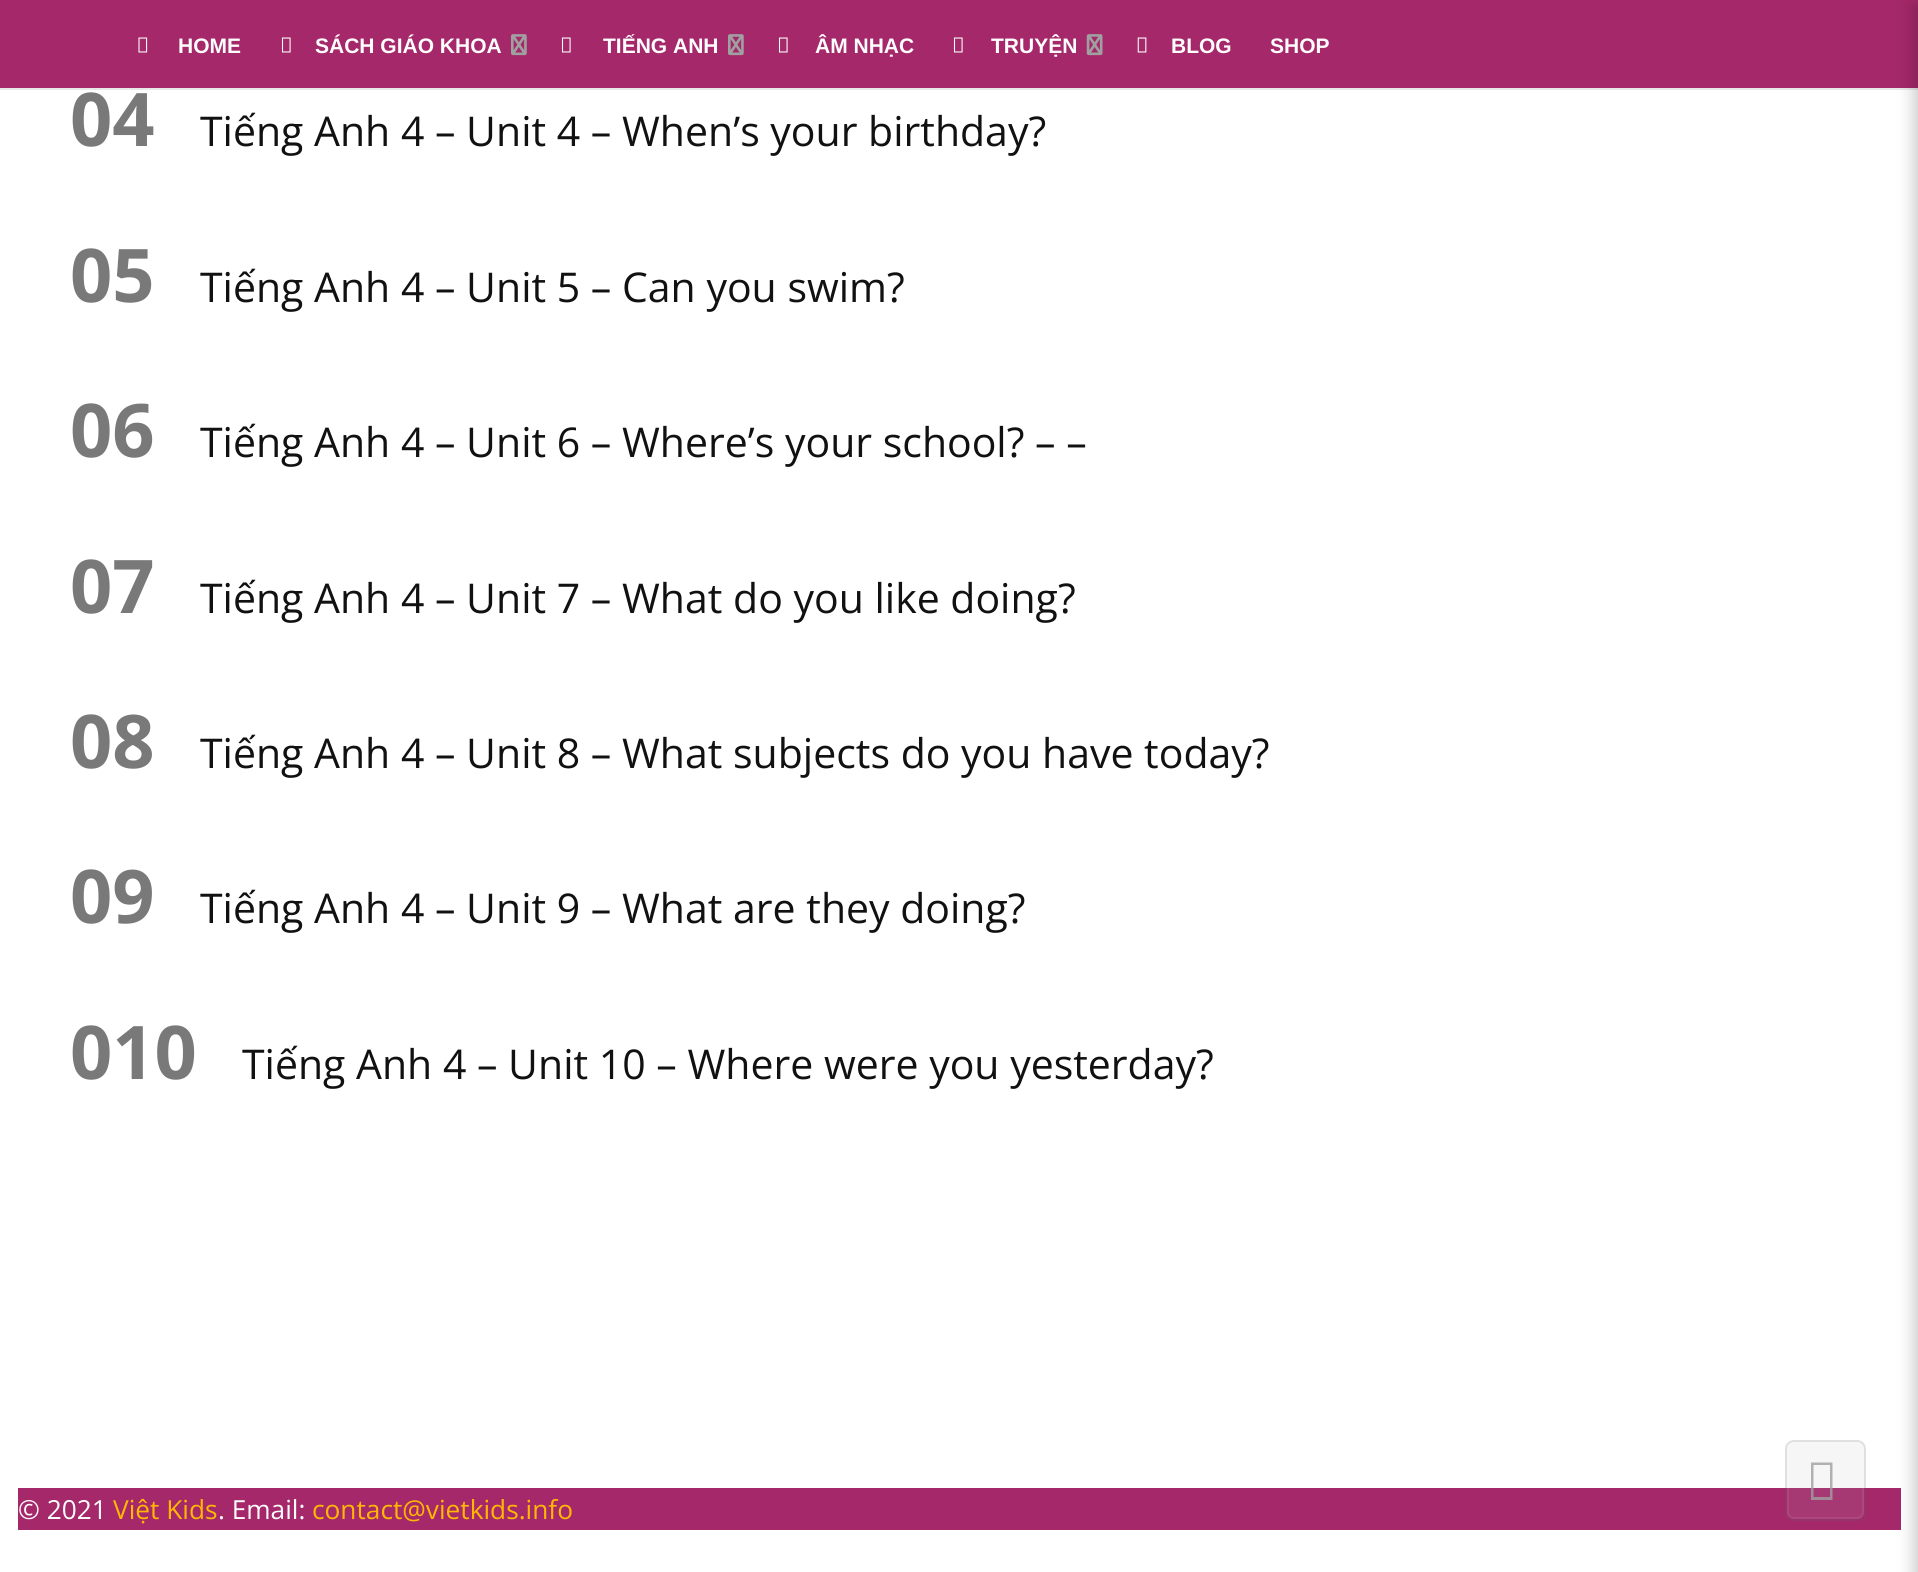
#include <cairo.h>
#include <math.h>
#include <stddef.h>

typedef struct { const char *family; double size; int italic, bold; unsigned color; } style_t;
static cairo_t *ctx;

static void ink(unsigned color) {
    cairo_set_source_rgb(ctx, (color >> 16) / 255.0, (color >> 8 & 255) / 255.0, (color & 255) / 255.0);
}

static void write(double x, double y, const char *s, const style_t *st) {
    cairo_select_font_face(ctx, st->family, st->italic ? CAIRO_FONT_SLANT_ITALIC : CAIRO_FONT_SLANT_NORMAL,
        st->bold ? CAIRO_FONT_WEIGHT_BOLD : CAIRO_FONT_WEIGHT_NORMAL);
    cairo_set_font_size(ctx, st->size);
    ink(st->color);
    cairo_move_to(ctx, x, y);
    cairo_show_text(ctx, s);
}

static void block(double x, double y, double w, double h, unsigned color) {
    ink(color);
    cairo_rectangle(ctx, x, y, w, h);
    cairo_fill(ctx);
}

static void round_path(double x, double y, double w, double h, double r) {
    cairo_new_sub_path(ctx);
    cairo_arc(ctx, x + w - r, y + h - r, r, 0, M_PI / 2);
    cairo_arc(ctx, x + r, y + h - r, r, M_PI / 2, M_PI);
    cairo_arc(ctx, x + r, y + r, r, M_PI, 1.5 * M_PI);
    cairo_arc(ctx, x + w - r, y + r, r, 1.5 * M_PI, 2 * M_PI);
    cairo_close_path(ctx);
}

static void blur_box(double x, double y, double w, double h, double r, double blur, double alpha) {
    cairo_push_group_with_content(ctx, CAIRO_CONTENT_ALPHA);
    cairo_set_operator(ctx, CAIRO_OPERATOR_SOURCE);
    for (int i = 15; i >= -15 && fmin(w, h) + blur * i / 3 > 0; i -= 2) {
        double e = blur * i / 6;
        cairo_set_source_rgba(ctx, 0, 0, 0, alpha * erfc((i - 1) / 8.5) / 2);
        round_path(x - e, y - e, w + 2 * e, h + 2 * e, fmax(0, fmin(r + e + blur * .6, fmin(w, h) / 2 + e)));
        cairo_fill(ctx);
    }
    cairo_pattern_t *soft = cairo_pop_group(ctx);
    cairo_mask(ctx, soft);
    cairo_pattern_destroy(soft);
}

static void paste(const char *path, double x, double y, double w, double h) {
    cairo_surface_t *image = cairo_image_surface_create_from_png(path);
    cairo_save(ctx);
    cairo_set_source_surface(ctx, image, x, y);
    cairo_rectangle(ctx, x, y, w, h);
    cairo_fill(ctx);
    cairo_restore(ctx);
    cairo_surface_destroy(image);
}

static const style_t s1 = {"Liberation Sans", 21, 0, 1, 0xfdfdfd};
static const style_t s2 = {"Open Sans", 74, 0, 1, 0x797979};
static const style_t s3 = {"Open Sans", 41, 0, 0, 0x111111};
static const style_t s4 = {"Open Sans", 26.25, 0, 0, 0xfdfdfd};
static const style_t s5 = {"Open Sans", 26.25, 0, 0, 0xffb703};

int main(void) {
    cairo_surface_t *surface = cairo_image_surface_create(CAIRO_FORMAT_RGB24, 1918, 1572);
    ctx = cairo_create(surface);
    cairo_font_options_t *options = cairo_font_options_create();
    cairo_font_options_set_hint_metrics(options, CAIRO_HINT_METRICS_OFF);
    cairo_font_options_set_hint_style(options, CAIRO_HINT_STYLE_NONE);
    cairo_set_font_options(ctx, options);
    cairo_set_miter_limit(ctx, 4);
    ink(0xffffff);
    cairo_paint(ctx);
    block(0, 0, 1918, 88, 0xa4286a);
    block(0, 88, 1918, 2, 0xe8e8e8);
    paste("pic1.png", 138, 37, 10, 16);
    write(178, 53, "HOME", &s1);
    paste("pic2.png", 281, 37, 10, 16);
    write(315, 53, "SÁCH GIÁO KHOA", &s1);
    paste("pic3.png", 511, 34, 16, 22);
    paste("pic2.png", 561, 37, 10, 16);
    write(603, 53, "TIẾNG ANH", &s1);
    paste("pic3.png", 728, 34, 16, 22);
    paste("pic2.png", 778, 37, 10, 16);
    write(815, 53, "ÂM NHẠC", &s1);
    paste("pic2.png", 953, 37, 10, 16);
    write(991, 53, "TRUYỆN", &s1);
    paste("pic4.png", 1086, 34, 17, 22);
    paste("pic5.png", 1137, 37, 10, 16);
    write(1171, 53, "BLOG", &s1);
    write(1270, 53, "SHOP", &s1);
    write(70, 146, "04", &s2);
    write(200, 146, "Tiếng Anh 4 – Unit 4 – When’s your birthday?", &s3);
    write(70, 302, "05", &s2);
    write(200, 302, "Tiếng Anh 4 – Unit 5 – Can you swim?", &s3);
    write(70, 457, "06", &s2);
    write(200, 457, "Tiếng Anh 4 – Unit 6 – Where’s your school? – –", &s3);
    write(70, 613, "07", &s2);
    write(200, 613, "Tiếng Anh 4 – Unit 7 – What do you like doing?", &s3);
    write(70, 768, "08", &s2);
    write(200, 768, "Tiếng Anh 4 – Unit 8 – What subjects do you have today?", &s3);
    write(70, 923, "09", &s2);
    write(200, 923, "Tiếng Anh 4 – Unit 9 – What are they doing?", &s3);
    write(70, 1079, "010", &s2);
    write(242, 1079, "Tiếng Anh 4 – Unit 10 – Where were you yesterday?", &s3);
    block(18, 1488, 1883, 42, 0xa4286a);
    write(18, 1519, "© 2021", &s4);
    write(113, 1519, "Việt Kids", &s5);
    write(218, 1519, ". Email:", &s4);
    write(312, 1519, "contact@vietkids.info", &s5);
    cairo_set_source_rgba(ctx, 0.706, 0.706, 0.706, 0.12);
    round_path(1785, 1440, 81, 81, 9);
    cairo_fill(ctx);
    round_path(1788, 1443, 75, 75, 6);
    cairo_set_source_rgba(ctx, 1, 1, 1, 0.08);
    cairo_stroke(ctx);
    round_path(1786, 1441, 79, 79, 8);
    cairo_set_source_rgba(ctx, 0, 0, 0, 0.09);
    cairo_stroke(ctx);
    cairo_set_source_rgba(ctx, 0.627, 0.627, 0.627, 0.8);
    cairo_new_path(ctx);
    cairo_move_to(ctx, 1811, 1500);
    cairo_line_to(ctx, 1811, 1462.5);
    cairo_line_to(ctx, 1832.5, 1462.5);
    cairo_line_to(ctx, 1832.5, 1500);
    cairo_close_path(ctx);
    cairo_move_to(ctx, 1813.5, 1497);
    cairo_line_to(ctx, 1830, 1497);
    cairo_line_to(ctx, 1830, 1465);
    cairo_line_to(ctx, 1813.5, 1465);
    cairo_close_path(ctx);
    cairo_fill(ctx);
    ink(0x000000);
    blur_box(1913, 5, 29, 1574, 0, 8, 0.2);
    cairo_surface_write_to_png(surface, "screenshot.png");
    cairo_font_options_destroy(options);
    cairo_destroy(ctx);
    cairo_surface_destroy(surface);
    return 0;
}
